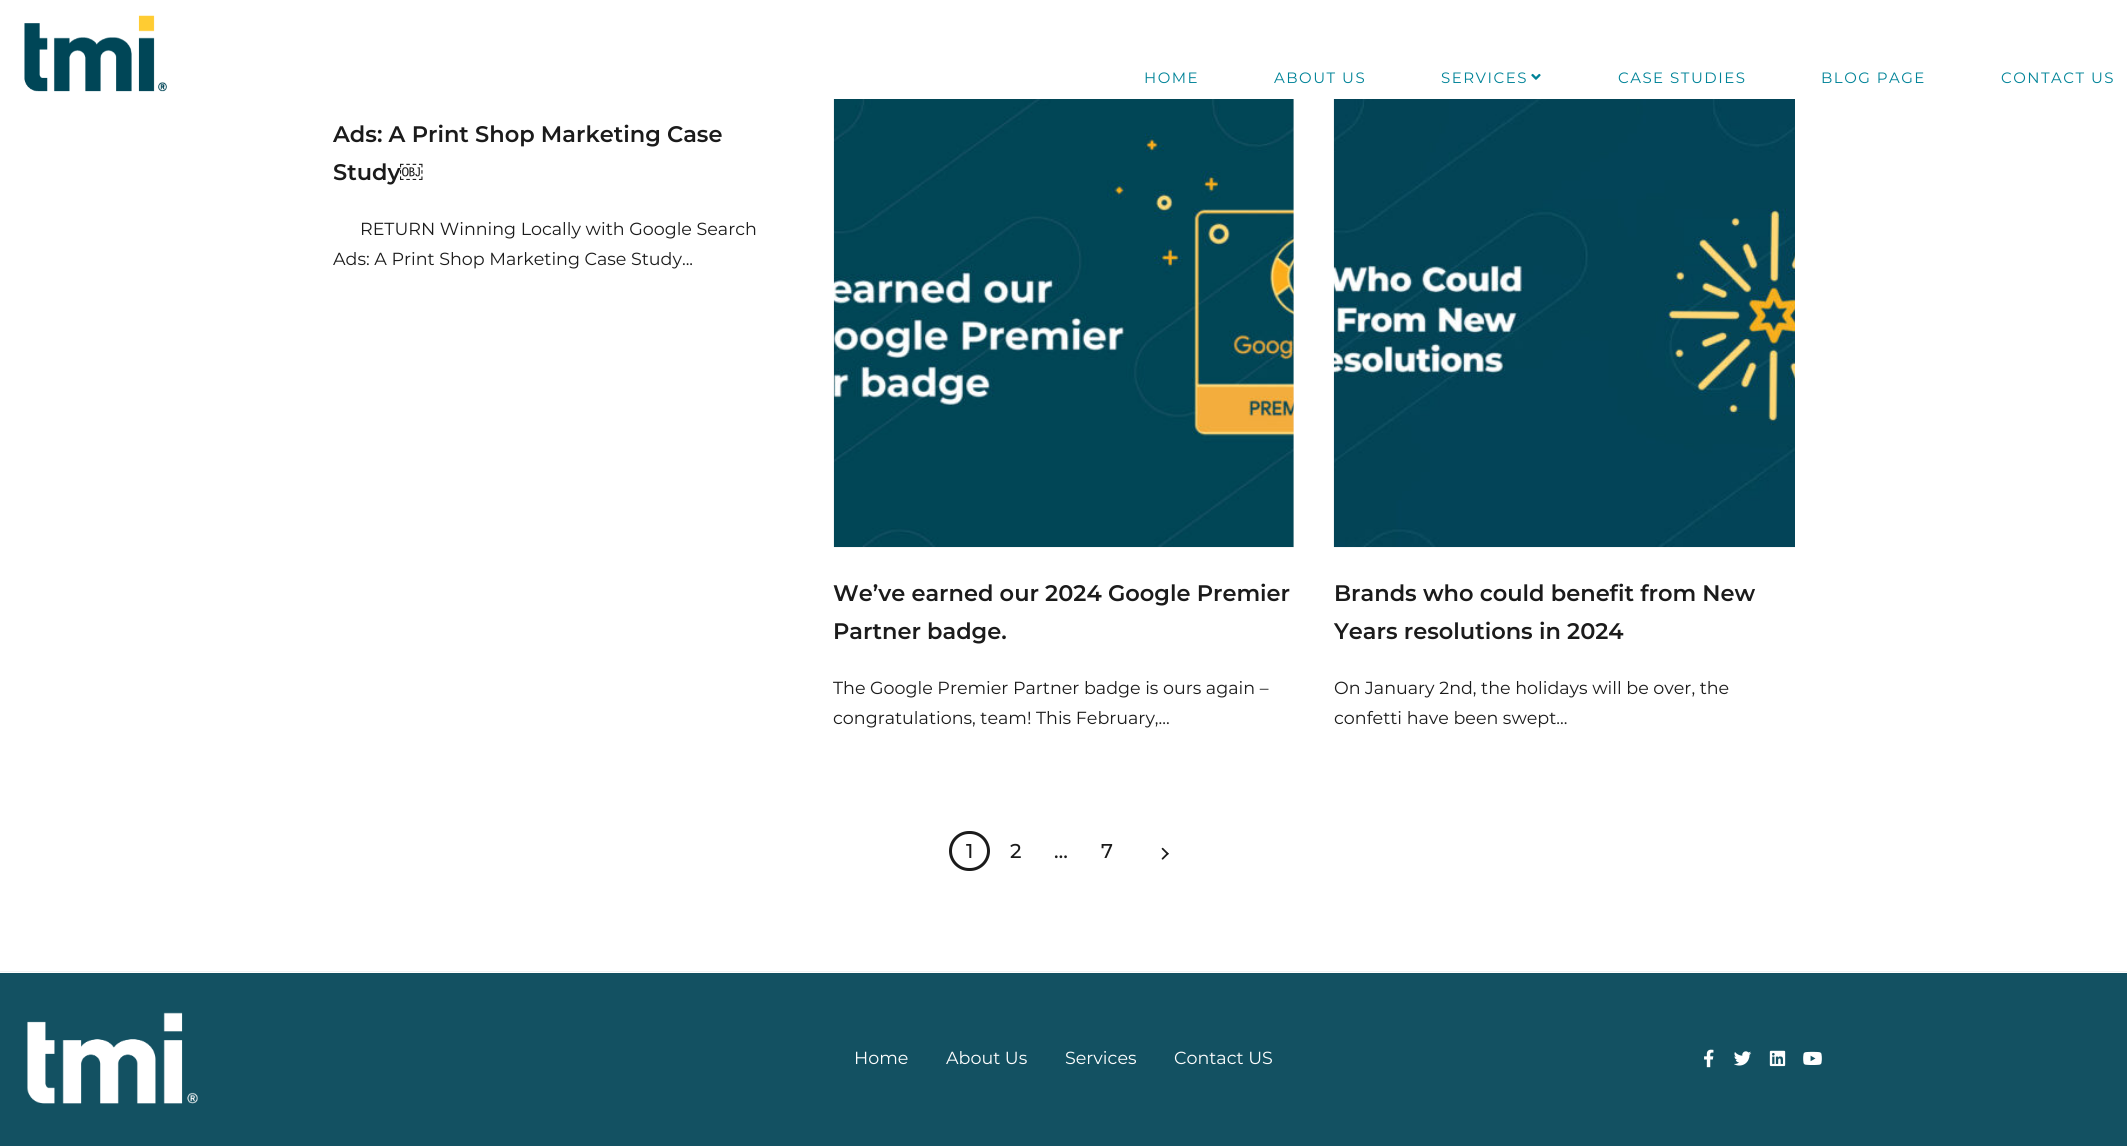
#include <cairo.h>
#include <math.h>
#include <stddef.h>

typedef struct { const char *family; double size; int italic, bold; unsigned color; } style_t;
static cairo_t *ctx;

static void ink(unsigned color) {
    cairo_set_source_rgb(ctx, (color >> 16) / 255.0, (color >> 8 & 255) / 255.0, (color & 255) / 255.0);
}

static void write(double x, double y, const char *s, const style_t *st) {
    cairo_select_font_face(ctx, st->family, st->italic ? CAIRO_FONT_SLANT_ITALIC : CAIRO_FONT_SLANT_NORMAL,
        st->bold ? CAIRO_FONT_WEIGHT_BOLD : CAIRO_FONT_WEIGHT_NORMAL);
    cairo_set_font_size(ctx, st->size);
    ink(st->color);
    cairo_move_to(ctx, x, y);
    cairo_show_text(ctx, s);
}

static void write_spaced(double x, double y, const char *s, double letter, double word) {
    cairo_move_to(ctx, x, y);
    while (*s) {
        char ch[5] = {0};
        int n = 0;
        do ch[n++] = *s++; while ((*s & 0xC0) == 0x80);
        cairo_show_text(ctx, ch);
        cairo_rel_move_to(ctx, letter + word * (*ch == ' '), 0);
    }
}

static void block(double x, double y, double w, double h, unsigned color) {
    ink(color);
    cairo_rectangle(ctx, x, y, w, h);
    cairo_fill(ctx);
}

static void round_path(double x, double y, double w, double h, double r) {
    cairo_new_sub_path(ctx);
    cairo_arc(ctx, x + w - r, y + h - r, r, 0, M_PI / 2);
    cairo_arc(ctx, x + r, y + h - r, r, M_PI / 2, M_PI);
    cairo_arc(ctx, x + r, y + r, r, M_PI, 1.5 * M_PI);
    cairo_arc(ctx, x + w - r, y + r, r, 1.5 * M_PI, 2 * M_PI);
    cairo_close_path(ctx);
}

static void paste(const char *path, double x, double y, double w, double h) {
    cairo_surface_t *image = cairo_image_surface_create_from_png(path);
    cairo_save(ctx);
    cairo_set_source_surface(ctx, image, x, y);
    cairo_rectangle(ctx, x, y, w, h);
    cairo_fill(ctx);
    cairo_restore(ctx);
    cairo_surface_destroy(image);
}

static const style_t s1 = {"Montserrat SemiBold", 22.5, 0, 0, 0x1b1b1b};
static const style_t s2 = {"Liberation Sans", 22.5, 0, 1, 0x1b1b1b};
static const style_t s3 = {"Montserrat", 17.5, 0, 0, 0x1b1b1b};
static const style_t s4 = {"Montserrat Medium", 20, 0, 0, 0x1b1b1b};
static const style_t s5 = {"Montserrat", 17.5, 0, 0, 0xffffff};

int main(void) {
    cairo_surface_t *surface = cairo_image_surface_create(CAIRO_FORMAT_RGB24, 2127, 1146);
    ctx = cairo_create(surface);
    cairo_font_options_t *options = cairo_font_options_create();
    cairo_font_options_set_hint_metrics(options, CAIRO_HINT_METRICS_OFF);
    cairo_font_options_set_hint_style(options, CAIRO_HINT_STYLE_NONE);
    cairo_set_font_options(ctx, options);
    cairo_set_miter_limit(ctx, 4);
    ink(0xffffff);
    cairo_paint(ctx);
    paste("pic1.png", 24, 15, 143, 77);
    cairo_select_font_face(ctx, "Montserrat", CAIRO_FONT_SLANT_NORMAL, CAIRO_FONT_WEIGHT_NORMAL);
    cairo_set_font_size(ctx, 15);
    ink(0x008398);
    write_spaced(1144, 83, "HOME", 1.5, 0);
    write_spaced(1274, 83, "ABOUT US", 1.5, 0);
    write_spaced(1441, 83, "SERVICES", 1.5, 0);
    paste("pic2.png", 1531, 73, 10, 7);
    write_spaced(1618, 83, "CASE STUDIES", 1.5, 0);
    write_spaced(1821, 83, "BLOG PAGE", 1.5, 0);
    write_spaced(2001, 83, "CONTACT US", 1.5, 0);
    write(333, 142, "Ads: A Print Shop Marketing Case", &s1);
    write(333, 180, "Study", &s1);
    write(400, 180, "￼", &s2);
    write(360, 235, "RETURN Winning Locally with Google Search", &s3);
    write(333, 265, "Ads: A Print Shop Marketing Case Study...", &s3);
    block(834, 99, 460, 449, 0xf6f6f6);
    paste("pic3.png", 833, 99, 461, 448);
    write(833, 601, "We’ve earned our 2024 Google Premier", &s1);
    write(833, 639, "Partner badge.", &s1);
    write(833, 694, "The Google Premier Partner badge is ours again –", &s3);
    write(833, 724, "congratulations, team! This February,...", &s3);
    block(1334, 547, 461, 1, 0xf6f6f6);
    paste("pic4.png", 1333, 99, 462, 448);
    write(1334, 601, "Brands who could benefit from New", &s1);
    write(1334, 639, "Years resolutions in 2024", &s1);
    write(1334, 694, "On January 2nd, the holidays will be over, the", &s3);
    write(1334, 724, "confetti have been swept...", &s3);
    round_path(950.5, 832.5, 38, 37, 18.5);
    cairo_set_line_width(ctx, 3);
    cairo_stroke(ctx);
    write(966, 858, "1", &s4);
    write(1010, 858, "2", &s4);
    write(1054, 858, "…", &s4);
    write(1101, 858, "7", &s4);
    paste("pic5.png", 1161, 847, 8, 13);
    block(0, 971, 2127, 1, 0xf2f2f2);
    block(0, 973, 2127, 173, 0x135162);
    paste("pic6.png", 27, 1012, 171, 92);
    write(854, 1064, "Home", &s5);
    write(946, 1064, "About Us", &s5);
    write(1065, 1064, "Services", &s5);
    write(1174, 1064, "Contact US", &s5);
    paste("pic7.png", 1704, 1049, 10, 19);
    paste("pic8.png", 1734, 1051, 18, 15);
    paste("pic9.png", 1769, 1050, 17, 17);
    paste("pic10.png", 1803, 1051, 19, 14);
    cairo_surface_write_to_png(surface, "screenshot.png");
    cairo_font_options_destroy(options);
    cairo_destroy(ctx);
    cairo_surface_destroy(surface);
    return 0;
}
